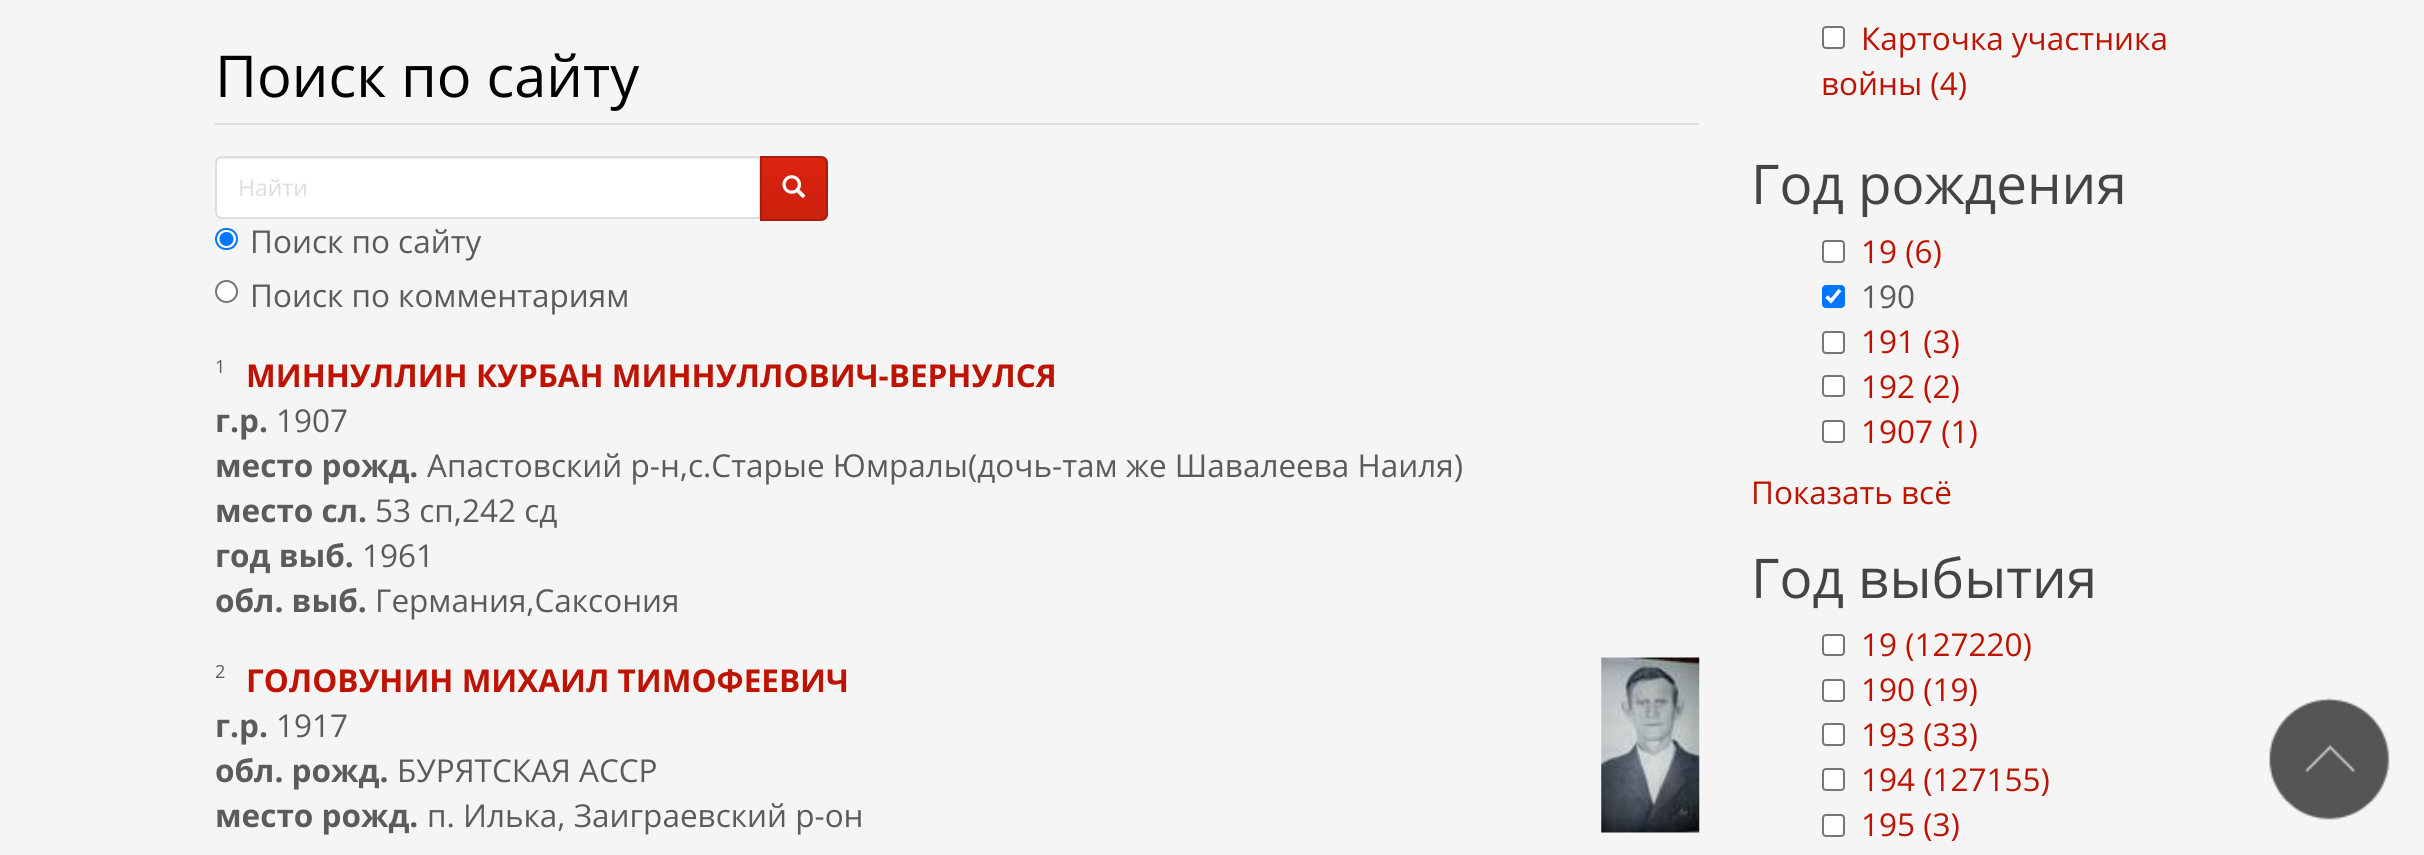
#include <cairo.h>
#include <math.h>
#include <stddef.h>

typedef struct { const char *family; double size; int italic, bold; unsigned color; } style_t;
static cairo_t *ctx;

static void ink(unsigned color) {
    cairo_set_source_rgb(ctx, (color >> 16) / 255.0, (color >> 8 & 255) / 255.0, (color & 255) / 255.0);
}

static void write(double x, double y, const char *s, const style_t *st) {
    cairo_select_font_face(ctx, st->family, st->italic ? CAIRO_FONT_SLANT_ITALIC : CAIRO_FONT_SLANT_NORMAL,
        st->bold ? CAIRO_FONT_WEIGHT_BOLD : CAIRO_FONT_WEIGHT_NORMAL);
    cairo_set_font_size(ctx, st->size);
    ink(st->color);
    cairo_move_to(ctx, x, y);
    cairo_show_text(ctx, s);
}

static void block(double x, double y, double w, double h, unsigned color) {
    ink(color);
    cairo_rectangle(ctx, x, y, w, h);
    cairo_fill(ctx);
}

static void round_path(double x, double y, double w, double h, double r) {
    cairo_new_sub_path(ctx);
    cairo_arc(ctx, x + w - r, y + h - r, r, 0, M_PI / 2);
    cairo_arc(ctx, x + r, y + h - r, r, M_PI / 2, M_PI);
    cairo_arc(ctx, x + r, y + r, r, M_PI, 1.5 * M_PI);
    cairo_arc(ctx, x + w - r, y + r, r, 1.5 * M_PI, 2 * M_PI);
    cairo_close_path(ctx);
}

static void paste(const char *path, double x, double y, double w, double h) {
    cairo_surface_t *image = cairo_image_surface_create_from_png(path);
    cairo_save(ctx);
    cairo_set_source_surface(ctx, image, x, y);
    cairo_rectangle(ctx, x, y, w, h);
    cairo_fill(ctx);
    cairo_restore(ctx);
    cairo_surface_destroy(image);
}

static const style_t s1 = {"Open Sans", 57.75, 0, 0, 0x000000};
static const style_t s2 = {"Open Sans", 23, 0, 0, 0xdddddd};
static const style_t s3 = {"Open Sans", 31.5, 0, 0, 0x5b5b5b};
static const style_t s4 = {"Open Sans", 18, 0, 0, 0x5b5b5b};
static const style_t s5 = {"Open Sans", 31.5, 0, 1, 0xbd1300};
static const style_t s6 = {"Open Sans", 31.5, 0, 1, 0x5b5b5b};
static const style_t s7 = {"Open Sans", 31.5, 0, 0, 0xbd1300};
static const style_t s8 = {"Open Sans", 54.75, 0, 0, 0x444444};

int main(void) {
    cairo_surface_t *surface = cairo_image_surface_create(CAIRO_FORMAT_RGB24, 2424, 855);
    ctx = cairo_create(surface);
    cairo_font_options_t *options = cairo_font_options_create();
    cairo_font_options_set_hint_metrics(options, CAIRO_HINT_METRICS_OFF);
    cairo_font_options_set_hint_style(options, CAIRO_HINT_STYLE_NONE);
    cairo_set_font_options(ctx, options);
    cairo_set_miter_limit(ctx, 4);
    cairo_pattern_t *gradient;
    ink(0xf5f5f5);
    cairo_paint(ctx);
    block(215, 123, 1484, 2, 0xdddddd);
    write(215, 97, "Поиск по сайту", &s1);
    ink(0xffffff);
    cairo_new_path(ctx);
    cairo_move_to(ctx, 222, 156);
    cairo_line_to(ctx, 761, 156);
    cairo_line_to(ctx, 761, 219);
    cairo_line_to(ctx, 222, 219);
    cairo_curve_to(ctx, 218, 219, 215, 216, 215, 212);
    cairo_line_to(ctx, 215, 163);
    cairo_curve_to(ctx, 215, 159, 218, 156, 222, 156);
    cairo_close_path(ctx);
    cairo_fill(ctx);
    ink(0xececec);
    cairo_new_path(ctx);
    cairo_move_to(ctx, 222, 159);
    cairo_line_to(ctx, 760, 159);
    cairo_line_to(ctx, 760, 158);
    cairo_line_to(ctx, 222, 158);
    cairo_curve_to(ctx, 219, 158, 217, 161, 217, 164);
    cairo_curve_to(ctx, 217, 162, 219, 159, 222, 159);
    cairo_close_path(ctx);
    cairo_fill(ctx);
    cairo_new_path(ctx);
    cairo_move_to(ctx, 222, 157);
    cairo_line_to(ctx, 760, 157);
    cairo_line_to(ctx, 760, 218);
    cairo_line_to(ctx, 222, 218);
    cairo_curve_to(ctx, 218.5, 218, 216, 215.5, 216, 212);
    cairo_line_to(ctx, 216, 163);
    cairo_curve_to(ctx, 216, 159.5, 218.5, 157, 222, 157);
    cairo_close_path(ctx);
    ink(0xdddddd);
    cairo_stroke(ctx);
    write(238, 196, "Найти", &s2);
    gradient = cairo_pattern_create_linear(794, 158, 794, 219);
    cairo_pattern_add_color_stop_rgba(gradient, 0, 0.906, 0.145, 0.063, 1);
    cairo_pattern_add_color_stop_rgba(gradient, 0.06, 0.851, 0.137, 0.059, 1);
    cairo_pattern_add_color_stop_rgba(gradient, 1, 0.796, 0.129, 0.055, 1);
    cairo_set_source(ctx, gradient);
    cairo_pattern_destroy(gradient);
    cairo_rectangle(ctx, 762, 158, 64, 61);
    cairo_fill(ctx);
    cairo_new_path(ctx);
    cairo_move_to(ctx, 761, 157);
    cairo_line_to(ctx, 821, 157);
    cairo_curve_to(ctx, 824.5, 157, 827, 159.5, 827, 163);
    cairo_line_to(ctx, 827, 214);
    cairo_curve_to(ctx, 827, 217.5, 824.5, 220, 821, 220);
    cairo_line_to(ctx, 761, 220);
    cairo_close_path(ctx);
    ink(0xa91b0c);
    cairo_stroke(ctx);
    paste("pic1.png", 782, 175, 24, 23);
    ink(0xffffff);
    round_path(216, 229, 21, 20, 10);
    cairo_fill_preserve(ctx);
    ink(0x0075ff);
    cairo_stroke(ctx);
    cairo_arc(ctx, 226.5, 239, 7, 0, 2 * M_PI);
    cairo_fill(ctx);
    write(250, 253, "Поиск по сайту", &s3);
    ink(0xffffff);
    cairo_new_path(ctx);
    cairo_arc(ctx, 226.5, 291.5, 10.5, 0, 2 * M_PI);
    cairo_fill_preserve(ctx);
    ink(0x767676);
    cairo_stroke(ctx);
    write(250, 307, "Поиск по комментариям", &s3);
    write(215, 373, "1", &s4);
    write(246, 387, "МИННУЛЛИН КУРБАН МИННУЛЛОВИЧ-ВЕРНУЛСЯ", &s5);
    write(215, 432, "г.р.", &s6);
    write(276, 432, "1907", &s3);
    write(215, 477, "место рожд.", &s6);
    write(427, 477, "Апастовский р-н,с.Старые Юмралы(дочь-там же Шавалеева Наиля)", &s3);
    write(215, 522, "место сл.", &s6);
    write(375, 522, "53 сп,242 сд", &s3);
    write(215, 567, "год выб.", &s6);
    write(362, 567, "1961", &s3);
    write(215, 612, "обл. выб.", &s6);
    write(375, 612, "Германия,Саксония", &s3);
    write(215, 678, "2", &s4);
    write(246, 692, "ГОЛОВУНИН МИХАИЛ ТИМОФЕЕВИЧ", &s5);
    paste("pic2.png", 1601, 657, 99, 176);
    write(215, 737, "г.р.", &s6);
    write(276, 737, "1917", &s3);
    write(215, 782, "обл. рожд.", &s6);
    write(397, 782, "БУРЯТСКАЯ АССР", &s3);
    write(215, 827, "место рожд.", &s6);
    write(427, 827, "п. Илька, Заиграевский р-он", &s3);
    ink(0xffffff);
    round_path(1823, 27, 21, 21, 3);
    cairo_fill_preserve(ctx);
    ink(0x767676);
    cairo_stroke(ctx);
    write(1861, 50, "Карточка участника", &s7);
    write(1821, 95, "войны (4)", &s7);
    write(1751, 204, "Год рождения", &s8);
    ink(0xffffff);
    round_path(1823, 241, 21, 21, 3);
    cairo_fill_preserve(ctx);
    ink(0x767676);
    cairo_stroke(ctx);
    write(1861, 263, "19 (6)", &s7);
    ink(0x0075ff);
    round_path(1822, 285, 23, 23, 4);
    cairo_fill(ctx);
    cairo_new_path(ctx);
    cairo_move_to(ctx, 1826.5, 296.5);
    cairo_line_to(ctx, 1831, 301);
    cairo_line_to(ctx, 1840, 290);
    ink(0xffffff);
    cairo_set_line_width(ctx, 3.6);
    cairo_stroke(ctx);
    write(1861, 308, "190", &s3);
    ink(0xffffff);
    round_path(1823, 332, 21, 21, 3);
    cairo_fill_preserve(ctx);
    ink(0x767676);
    cairo_set_line_width(ctx, 2);
    cairo_stroke(ctx);
    write(1861, 353, "191 (3)", &s7);
    ink(0xffffff);
    round_path(1823, 376, 21, 20, 3);
    cairo_fill_preserve(ctx);
    ink(0x767676);
    cairo_stroke(ctx);
    write(1861, 398, "192 (2)", &s7);
    ink(0xffffff);
    round_path(1823, 421, 21, 21, 3);
    cairo_fill_preserve(ctx);
    ink(0x767676);
    cairo_stroke(ctx);
    write(1861, 443, "1907 (1)", &s7);
    write(1751, 504, "Показать всё", &s7);
    write(1751, 598, "Год выбытия", &s8);
    ink(0xffffff);
    round_path(1823, 635, 21, 20, 3);
    cairo_fill_preserve(ctx);
    ink(0x767676);
    cairo_stroke(ctx);
    write(1861, 656, "19 (127220)", &s7);
    ink(0xffffff);
    round_path(1823, 680, 21, 21, 3);
    cairo_fill_preserve(ctx);
    ink(0x767676);
    cairo_stroke(ctx);
    write(1861, 701, "190 (19)", &s7);
    ink(0xffffff);
    round_path(1823, 724, 21, 21, 3);
    cairo_fill_preserve(ctx);
    ink(0x767676);
    cairo_stroke(ctx);
    write(1861, 746, "193 (33)", &s7);
    ink(0xffffff);
    round_path(1823, 769, 21, 21, 3);
    cairo_fill_preserve(ctx);
    ink(0x767676);
    cairo_stroke(ctx);
    write(1861, 791, "194 (127155)", &s7);
    ink(0xffffff);
    round_path(1823, 815, 21, 21, 3);
    cairo_fill_preserve(ctx);
    ink(0x767676);
    cairo_stroke(ctx);
    write(1861, 836, "195 (3)", &s7);
    paste("pic3.png", 2268, 698, 122, 122);
    cairo_surface_write_to_png(surface, "screenshot.png");
    cairo_font_options_destroy(options);
    cairo_destroy(ctx);
    cairo_surface_destroy(surface);
    return 0;
}
